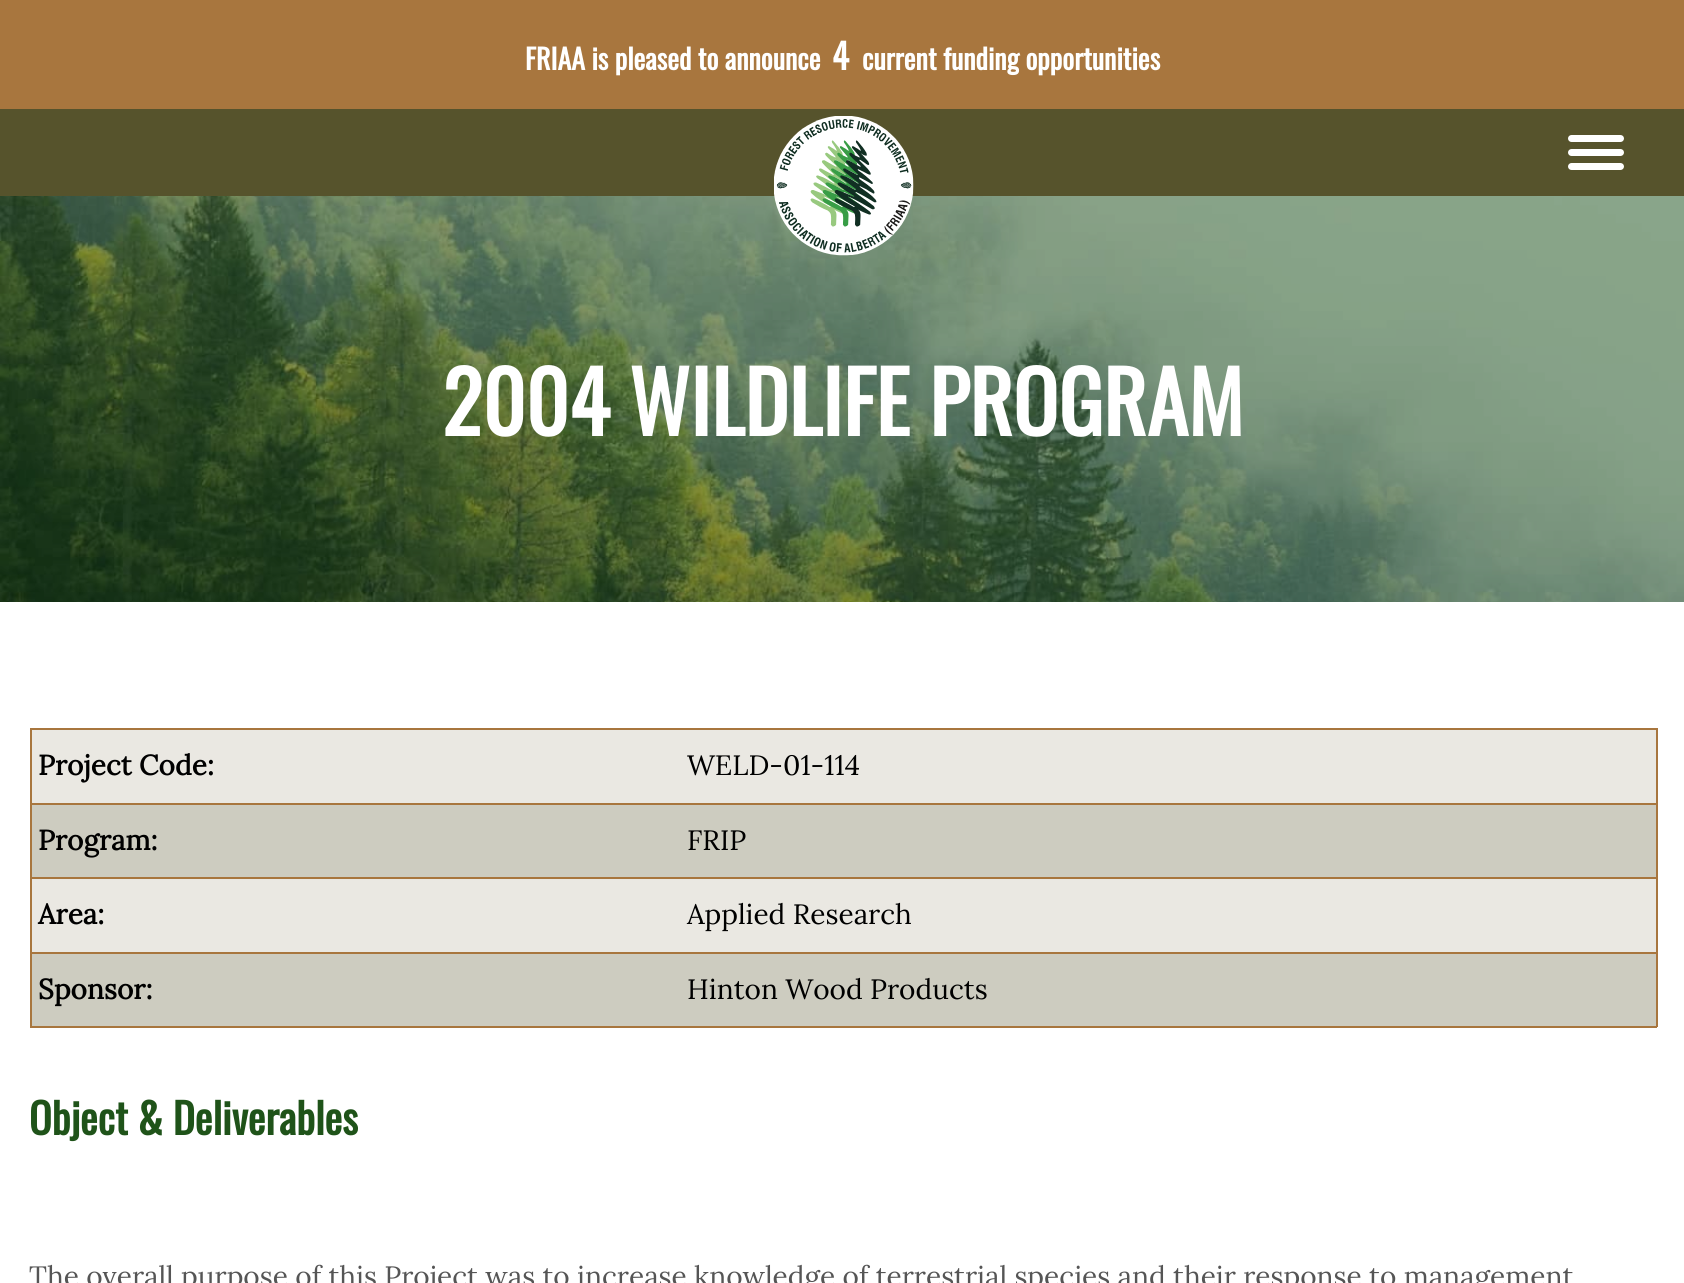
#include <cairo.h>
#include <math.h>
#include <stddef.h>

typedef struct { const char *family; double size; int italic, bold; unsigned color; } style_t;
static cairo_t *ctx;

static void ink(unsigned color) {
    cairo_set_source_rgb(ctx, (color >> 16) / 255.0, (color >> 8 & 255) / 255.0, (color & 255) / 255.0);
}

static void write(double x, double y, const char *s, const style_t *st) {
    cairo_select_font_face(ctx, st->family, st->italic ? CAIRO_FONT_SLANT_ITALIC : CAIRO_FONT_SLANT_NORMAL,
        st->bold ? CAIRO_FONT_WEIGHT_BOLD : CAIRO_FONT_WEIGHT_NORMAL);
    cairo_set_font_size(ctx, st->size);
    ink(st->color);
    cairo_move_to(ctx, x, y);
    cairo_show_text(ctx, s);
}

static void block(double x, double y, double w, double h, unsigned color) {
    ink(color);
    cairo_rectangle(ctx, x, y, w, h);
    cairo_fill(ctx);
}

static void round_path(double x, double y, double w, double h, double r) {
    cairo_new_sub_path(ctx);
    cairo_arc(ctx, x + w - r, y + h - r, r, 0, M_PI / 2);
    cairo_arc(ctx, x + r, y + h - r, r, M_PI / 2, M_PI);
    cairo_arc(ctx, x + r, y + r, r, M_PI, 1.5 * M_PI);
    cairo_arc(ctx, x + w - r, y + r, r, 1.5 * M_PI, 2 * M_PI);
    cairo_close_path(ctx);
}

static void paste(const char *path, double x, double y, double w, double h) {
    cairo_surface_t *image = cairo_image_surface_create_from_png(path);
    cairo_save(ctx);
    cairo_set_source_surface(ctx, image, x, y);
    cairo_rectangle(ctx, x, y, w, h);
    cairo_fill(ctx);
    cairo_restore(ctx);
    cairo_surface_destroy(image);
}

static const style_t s1 = {"Oswald", 28, 0, 1, 0xffffff};
static const style_t s2 = {"Oswald", 35, 0, 1, 0xffffff};
static const style_t s3 = {"Oswald", 84, 0, 1, 0xffffff};
static const style_t s4 = {"Lora", 28, 0, 1, 0x000000};
static const style_t s5 = {"Lora", 28, 0, 0, 0x000000};
static const style_t s6 = {"Oswald", 42, 0, 1, 0x1f5319};
static const style_t s7 = {"Lora", 28, 0, 0, 0x555555};

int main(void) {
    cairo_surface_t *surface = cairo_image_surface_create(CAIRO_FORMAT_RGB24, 1684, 1283);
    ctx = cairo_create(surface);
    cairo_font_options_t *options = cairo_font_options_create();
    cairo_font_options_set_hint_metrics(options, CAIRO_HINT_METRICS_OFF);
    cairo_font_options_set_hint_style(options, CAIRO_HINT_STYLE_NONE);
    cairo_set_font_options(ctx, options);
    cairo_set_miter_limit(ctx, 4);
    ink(0xffffff);
    cairo_paint(ctx);
    block(0, 0, 1684, 109, 0xa8763e);
    write(525, 70, "FRIAA is pleased to announce", &s1);
    write(832, 70, "4", &s2);
    write(862, 70, "current funding opportunities", &s1);
    block(0, 109, 1684, 87, 0x56532c);
    paste("pic2.png", 0, 196, 1684, 406);
    paste("pic1.png", 774, 116, 140, 140);
    ink(0xffffff);
    round_path(1568, 135, 56, 7, 3.5);
    cairo_fill(ctx);
    round_path(1568, 149, 56, 7, 3.5);
    cairo_fill(ctx);
    round_path(1568, 163, 56, 7, 3.5);
    cairo_fill(ctx);
    write(442, 436, "2004 WILDLIFE PROGRAM", &s3);
    block(30, 728, 1627, 2, 0xa8763e);
    block(1656, 728, 2, 299, 0xa8763e);
    block(30, 1026, 1627, 2, 0xa8763e);
    block(30, 728, 2, 299, 0xa8763e);
    block(32, 730, 1624, 73, 0xeae8e2);
    block(30, 803, 1627, 2, 0xa8763e);
    write(38, 775, "Project Code:", &s4);
    write(687, 775, "WELD-01-114", &s5);
    block(32, 805, 1624, 72, 0xcdccc0);
    block(30, 877, 1627, 2, 0xa8763e);
    write(38, 850, "Program:", &s4);
    write(687, 850, "FRIP", &s5);
    block(32, 879, 1624, 73, 0xeae8e2);
    block(30, 952, 1627, 2, 0xa8763e);
    write(38, 924, "Area:", &s4);
    write(687, 924, "Applied Research", &s5);
    block(32, 954, 1624, 72, 0xcdccc0);
    write(38, 999, "Sponsor:", &s4);
    write(687, 999, "Hinton Wood Products", &s5);
    write(29, 1135, "Object & Deliverables", &s6);
    write(29, 1286, "The overall purpose of this Project was to increase knowledge of terrestrial species and their response to management", &s7);
    cairo_surface_write_to_png(surface, "screenshot.png");
    cairo_font_options_destroy(options);
    cairo_destroy(ctx);
    cairo_surface_destroy(surface);
    return 0;
}
